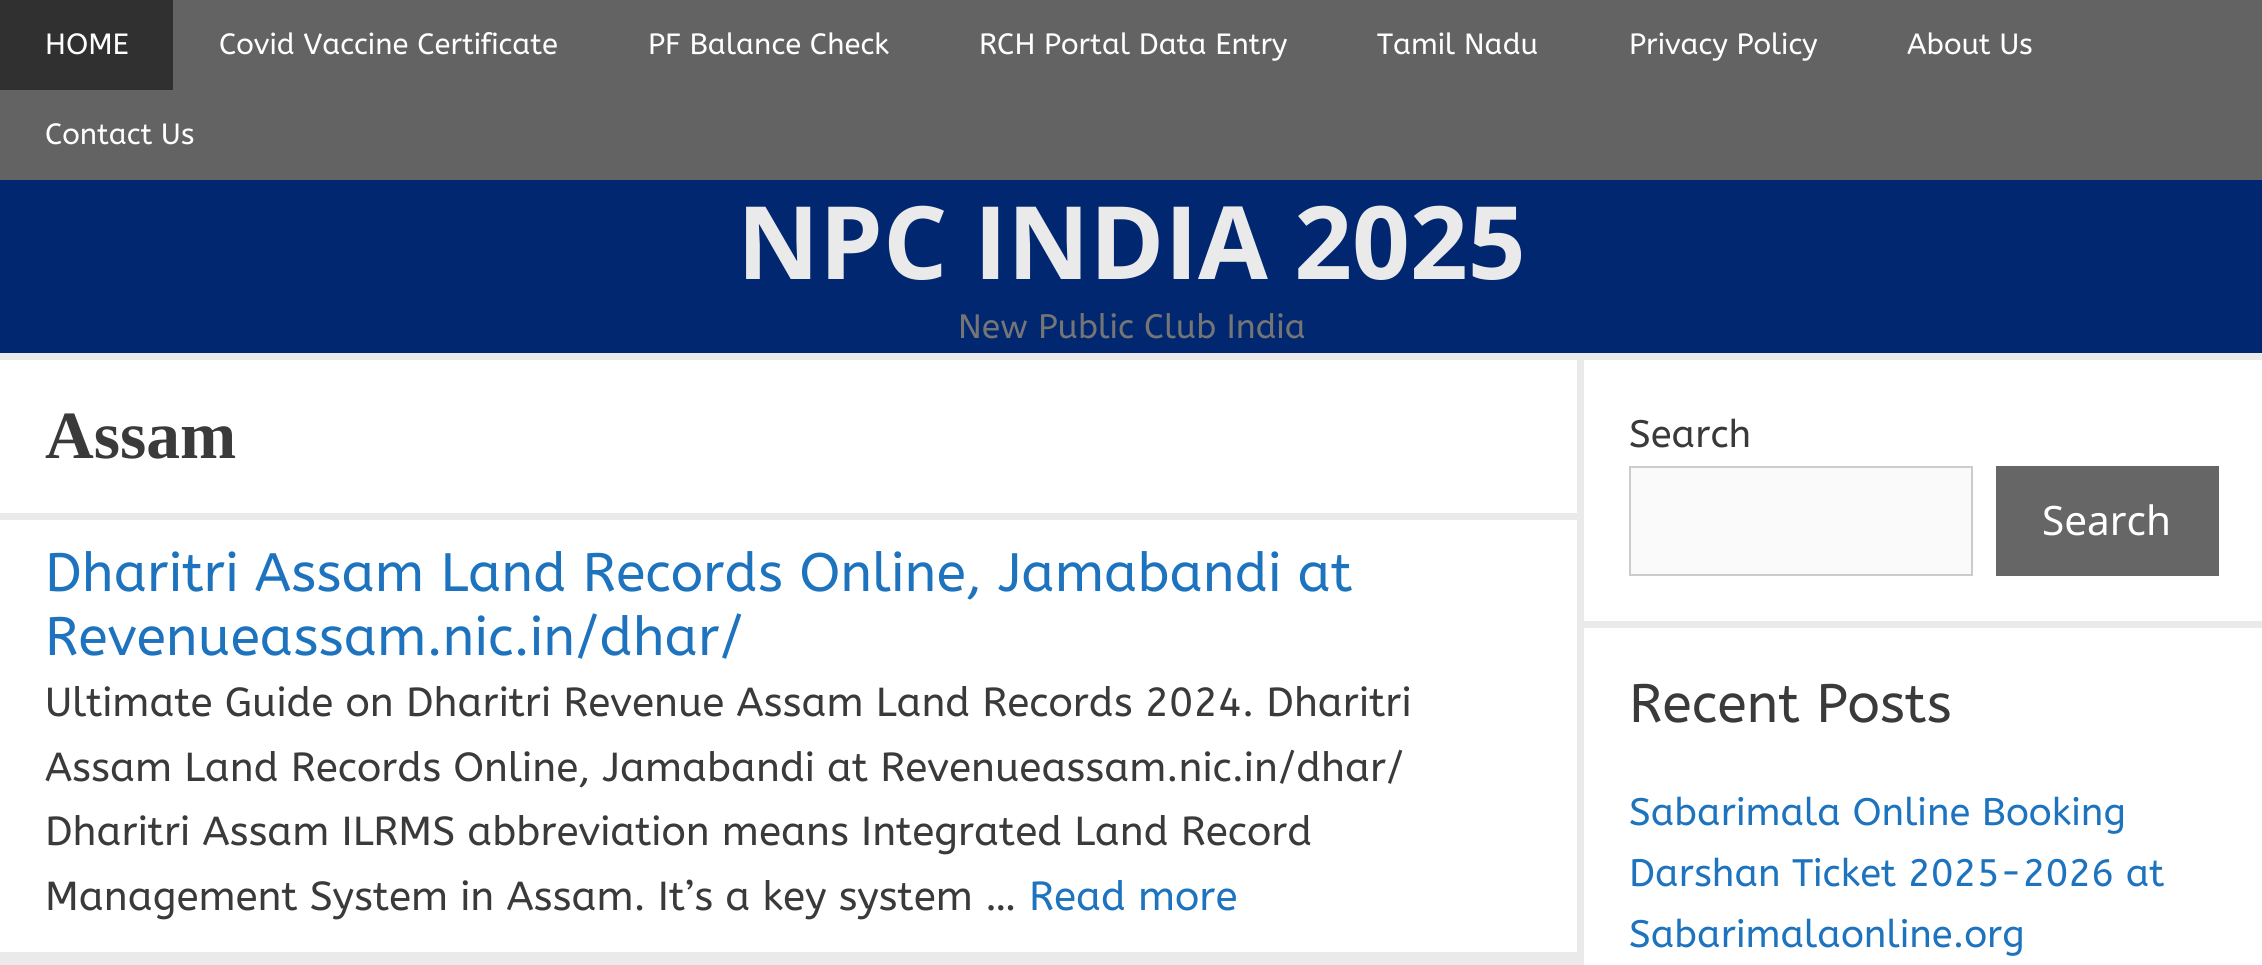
#include <cairo.h>
#include <math.h>
#include <stddef.h>

typedef struct { const char *family; double size; int italic, bold; unsigned color; } style_t;
static cairo_t *ctx;

static void ink(unsigned color) {
    cairo_set_source_rgb(ctx, (color >> 16) / 255.0, (color >> 8 & 255) / 255.0, (color & 255) / 255.0);
}

static void write(double x, double y, const char *s, const style_t *st) {
    cairo_select_font_face(ctx, st->family, st->italic ? CAIRO_FONT_SLANT_ITALIC : CAIRO_FONT_SLANT_NORMAL,
        st->bold ? CAIRO_FONT_WEIGHT_BOLD : CAIRO_FONT_WEIGHT_NORMAL);
    cairo_set_font_size(ctx, st->size);
    ink(st->color);
    cairo_move_to(ctx, x, y);
    cairo_show_text(ctx, s);
}

static void block(double x, double y, double w, double h, unsigned color) {
    ink(color);
    cairo_rectangle(ctx, x, y, w, h);
    cairo_fill(ctx);
}

static const style_t s1 = {"ABeeZee", 29.25, 0, 0, 0xffffff};
static const style_t s2 = {"Open Sans", 101.25, 0, 1, 0xeaeaea};
static const style_t s3 = {"ABeeZee", 33.75, 0, 0, 0x757575};
static const style_t s4 = {"Liberation Serif", 67.5, 0, 1, 0x3a3a3a};
static const style_t s5 = {"ABeeZee", 54, 0, 0, 0x1e73be};
static const style_t s6 = {"ABeeZee", 40.5, 0, 0, 0x3a3a3a};
static const style_t s7 = {"ABeeZee", 40.5, 0, 0, 0x1e73be};
static const style_t s8 = {"ABeeZee", 38.25, 0, 0, 0x3a3a3a};
static const style_t s9 = {"Noto Sans", 40.5, 0, 0, 0xffffff};
static const style_t s10 = {"ABeeZee", 54, 0, 0, 0x3a3a3a};
static const style_t s11 = {"ABeeZee", 38.25, 0, 0, 0x1e73be};

int main(void) {
    cairo_surface_t *surface = cairo_image_surface_create(CAIRO_FORMAT_RGB24, 2262, 965);
    ctx = cairo_create(surface);
    cairo_font_options_t *options = cairo_font_options_create();
    cairo_font_options_set_hint_metrics(options, CAIRO_HINT_METRICS_OFF);
    cairo_font_options_set_hint_style(options, CAIRO_HINT_STYLE_NONE);
    cairo_set_font_options(ctx, options);
    cairo_set_miter_limit(ctx, 4);
    ink(0xeaeaea);
    cairo_paint(ctx);
    block(0, 0, 2262, 180, 0x636363);
    block(0, 0, 173, 90, 0x303030);
    write(45, 54, "HOME", &s1);
    write(219, 54, "Covid Vaccine Certificate", &s1);
    write(648, 54, "PF Balance Check", &s1);
    write(979, 54, "RCH Portal Data Entry", &s1);
    write(1377, 54, "Tamil Nadu", &s1);
    write(1629, 54, "Privacy Policy", &s1);
    write(1907, 54, "About Us", &s1);
    write(45, 144, "Contact Us", &s1);
    block(0, 180, 2262, 173, 0x002770);
    write(737, 279, "NPC INDIA 2025", &s2);
    write(958, 338, "New Public Club India", &s3);
    block(0, 360, 1577, 153, 0xffffff);
    write(45, 458, "Assam", &s4);
    block(0, 520, 1577, 432, 0xffffff);
    write(45, 591, "Dharitri Assam Land Records Online, Jamabandi at", &s5);
    write(45, 655, "Revenueassam.nic.in/dhar/", &s5);
    write(45, 716, "Ultimate Guide on Dharitri Revenue Assam Land Records 2024. Dharitri", &s6);
    write(45, 781, "Assam Land Records Online, Jamabandi at Revenueassam.nic.in/dhar/", &s6);
    write(45, 845, "Dharitri Assam ILRMS abbreviation means Integrated Land Record", &s6);
    write(45, 910, "Management System in Assam. It’s a key system …", &s6);
    write(1029, 910, "Read more", &s7);
    block(1584, 360, 678, 261, 0xffffff);
    write(1629, 447, "Search", &s8);
    ink(0xfafafa);
    cairo_rectangle(ctx, 1630, 467, 342, 108);
    cairo_fill_preserve(ctx);
    ink(0xcccccc);
    cairo_stroke(ctx);
    block(1996, 466, 223, 110, 0x666666);
    write(2042, 535, "Search", &s9);
    block(1584, 628, 678, 337, 0xffffff);
    write(1629, 722, "Recent Posts", &s10);
    write(1629, 825, "Sabarimala Online Booking", &s11);
    write(1629, 886, "Darshan Ticket 2025-2026 at", &s11);
    write(1629, 947, "Sabarimalaonline.org", &s11);
    cairo_surface_write_to_png(surface, "screenshot.png");
    cairo_font_options_destroy(options);
    cairo_destroy(ctx);
    cairo_surface_destroy(surface);
    return 0;
}
